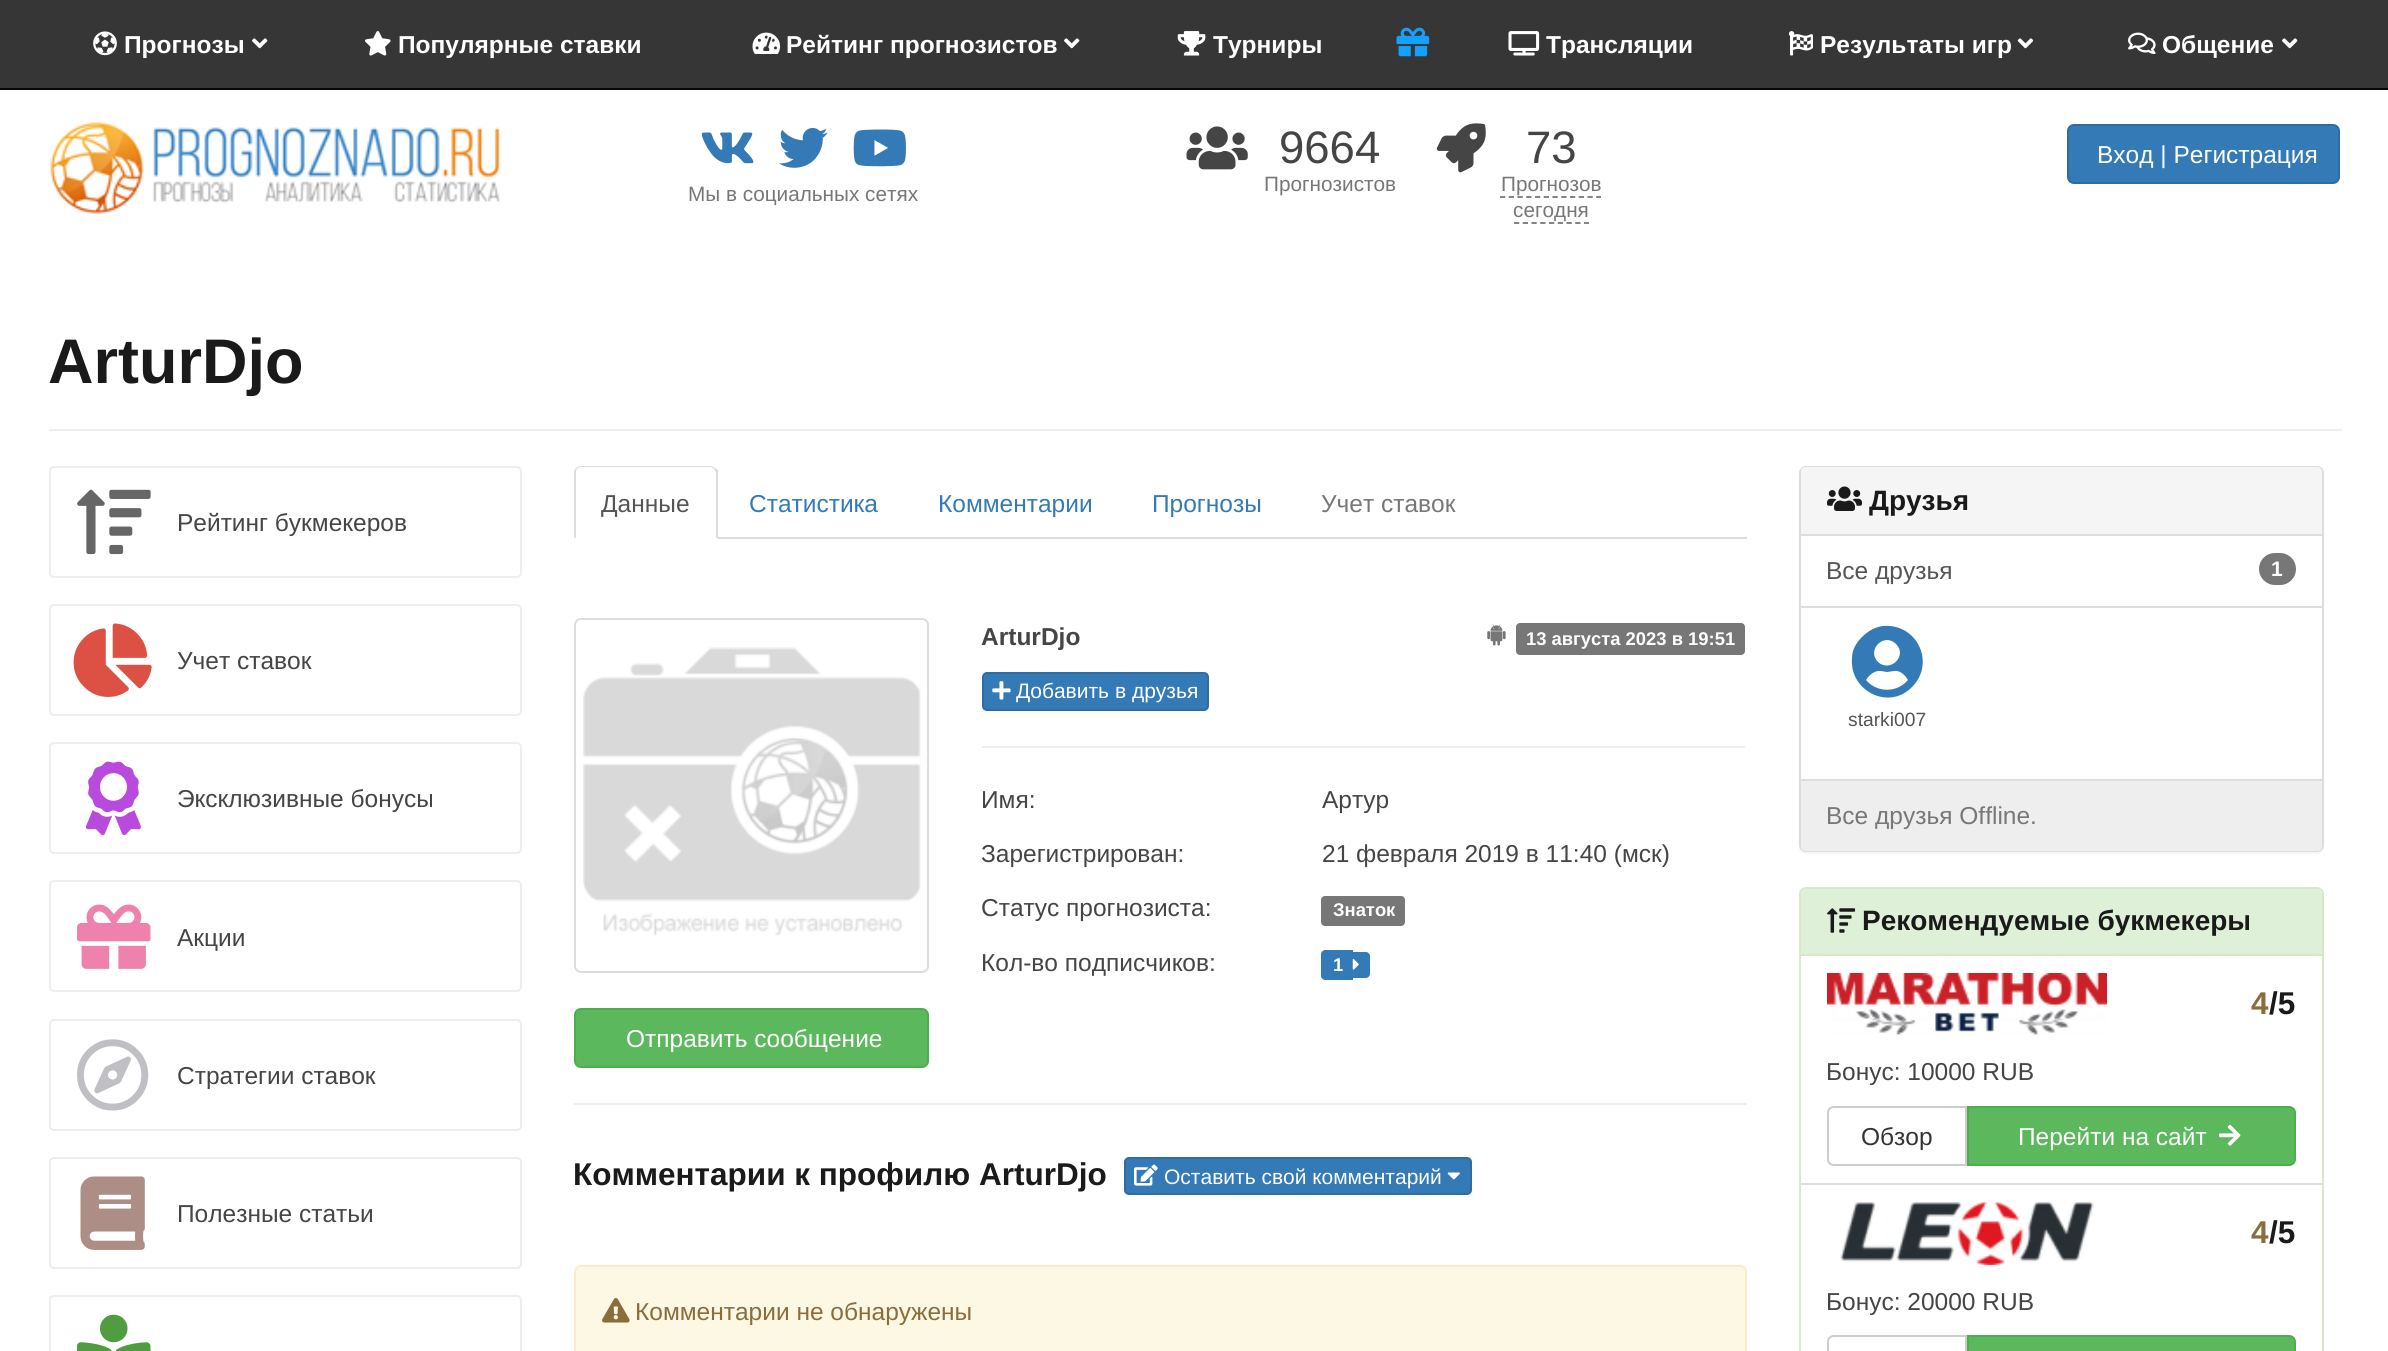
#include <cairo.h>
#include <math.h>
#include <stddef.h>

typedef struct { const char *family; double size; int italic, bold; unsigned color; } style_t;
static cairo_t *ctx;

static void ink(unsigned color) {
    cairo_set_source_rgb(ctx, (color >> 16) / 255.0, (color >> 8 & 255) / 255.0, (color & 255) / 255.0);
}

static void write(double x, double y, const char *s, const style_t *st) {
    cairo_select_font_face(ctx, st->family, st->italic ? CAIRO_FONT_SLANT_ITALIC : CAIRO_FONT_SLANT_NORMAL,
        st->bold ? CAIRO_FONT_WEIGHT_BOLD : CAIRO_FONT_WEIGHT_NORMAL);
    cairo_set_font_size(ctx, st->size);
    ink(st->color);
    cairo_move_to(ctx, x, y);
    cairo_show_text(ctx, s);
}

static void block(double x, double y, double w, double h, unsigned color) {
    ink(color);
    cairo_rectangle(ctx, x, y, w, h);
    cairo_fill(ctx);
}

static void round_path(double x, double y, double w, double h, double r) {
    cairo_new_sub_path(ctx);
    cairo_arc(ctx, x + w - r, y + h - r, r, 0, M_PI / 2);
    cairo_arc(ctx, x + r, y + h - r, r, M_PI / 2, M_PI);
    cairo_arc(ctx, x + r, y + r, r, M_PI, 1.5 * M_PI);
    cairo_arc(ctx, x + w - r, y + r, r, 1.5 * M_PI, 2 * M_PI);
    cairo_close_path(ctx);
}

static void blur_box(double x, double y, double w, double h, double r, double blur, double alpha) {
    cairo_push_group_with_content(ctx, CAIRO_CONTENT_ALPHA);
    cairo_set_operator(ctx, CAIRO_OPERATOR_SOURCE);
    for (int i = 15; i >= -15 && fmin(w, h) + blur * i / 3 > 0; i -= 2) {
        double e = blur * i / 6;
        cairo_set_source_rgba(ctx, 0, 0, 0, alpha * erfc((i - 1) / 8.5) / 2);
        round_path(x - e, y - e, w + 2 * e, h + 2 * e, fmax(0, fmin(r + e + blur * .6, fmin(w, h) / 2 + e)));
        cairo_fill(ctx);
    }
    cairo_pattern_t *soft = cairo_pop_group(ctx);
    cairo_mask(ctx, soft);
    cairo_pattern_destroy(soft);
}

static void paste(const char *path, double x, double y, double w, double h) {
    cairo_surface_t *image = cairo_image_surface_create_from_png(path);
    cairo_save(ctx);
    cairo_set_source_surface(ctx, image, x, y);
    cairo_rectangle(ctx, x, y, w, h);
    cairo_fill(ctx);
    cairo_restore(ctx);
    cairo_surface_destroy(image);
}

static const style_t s1 = {"Liberation Sans", 24.5, 0, 1, 0xffffff};
static const style_t s2 = {"Liberation Sans", 45.5, 0, 0, 0x454545};
static const style_t s3 = {"Liberation Sans", 20.75, 0, 0, 0x777777};
static const style_t s4 = {"Liberation Sans", 24.5, 0, 0, 0xffffff};
static const style_t s5 = {"Liberation Sans", 63, 0, 1, 0x1a1a1a};
static const style_t s6 = {"Liberation Sans", 24.5, 0, 0, 0x454545};
static const style_t s7 = {"Liberation Sans", 24.5, 0, 0, 0x555555};
static const style_t s8 = {"Liberation Sans", 24.5, 0, 0, 0x337ab7};
static const style_t s9 = {"Liberation Sans", 24.5, 0, 0, 0x777777};
static const style_t s10 = {"Liberation Sans", 24.5, 0, 1, 0x454545};
static const style_t s11 = {"Liberation Sans", 18.4, 0, 1, 0xffffff};
static const style_t s12 = {"Liberation Sans", 21, 0, 0, 0xffffff};
static const style_t s13 = {"Liberation Sans", 31.5, 0, 1, 0x1a1a1a};
static const style_t s14 = {"Liberation Sans", 24.5, 0, 0, 0x8a6d3b};
static const style_t s15 = {"Liberation Sans", 28, 0, 1, 0x1a1a1a};
static const style_t s16 = {"Liberation Sans", 21, 0, 1, 0xffffff};
static const style_t s17 = {"Liberation Sans", 19.25, 0, 0, 0x555555};
static const style_t s18 = {"Liberation Sans", 31.5, 0, 1, 0x8a6d3b};
static const style_t s19 = {"Liberation Sans", 24.5, 0, 0, 0x333333};

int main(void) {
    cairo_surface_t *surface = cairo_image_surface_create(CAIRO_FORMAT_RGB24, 2388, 1351);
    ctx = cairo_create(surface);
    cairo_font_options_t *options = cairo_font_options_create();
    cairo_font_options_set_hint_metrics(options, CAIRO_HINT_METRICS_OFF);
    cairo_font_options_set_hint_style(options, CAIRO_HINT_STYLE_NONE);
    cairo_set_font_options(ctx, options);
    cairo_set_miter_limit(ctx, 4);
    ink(0xffffff);
    cairo_paint(ctx);
    block(0, 0, 2388, 88, 0x363636);
    block(0, 88, 2388, 2, 0x080808);
    paste("pic1.png", 93, 31, 24, 25);
    write(124, 53, "Прогнозы", &s1);
    paste("pic2.png", 252, 38, 16, 11);
    paste("pic3.png", 365, 31, 26, 25);
    write(398, 53, "Популярные ставки", &s1);
    paste("pic4.png", 752, 32, 29, 22);
    write(786, 53, "Рейтинг прогнозистов", &s1);
    paste("pic2.png", 1064, 38, 16, 11);
    paste("pic5.png", 1177, 31, 29, 25);
    write(1213, 53, "Турниры", &s1);
    paste("pic6.png", 1396, 27, 34, 30);
    paste("pic7.png", 1508, 31, 32, 25);
    write(1546, 53, "Трансляции", &s1);
    paste("pic8.png", 1788, 31, 25, 25);
    write(1820, 53, "Результаты игр", &s1);
    paste("pic9.png", 2017, 38, 17, 11);
    paste("pic10.png", 2128, 32, 28, 22);
    write(2162, 53, "Общение", &s1);
    paste("pic2.png", 2282, 38, 16, 11);
    paste("pic11.png", 50, 122, 451, 92);
    paste("pic12.png", 1186, 126, 62, 44);
    write(1279, 163, "9664", &s2);
    write(1264, 191, "Прогнозистов", &s3);
    paste("pic13.png", 1436, 123, 50, 50);
    write(1526, 163, "73", &s2);
    write(1501, 191, "Прогнозов", &s3);
    cairo_new_path(ctx);
    cairo_move_to(ctx, 1500, 197);
    cairo_line_to(ctx, 1601, 197);
    cairo_set_line_width(ctx, 1.8);
    cairo_set_dash(ctx, (double[]){5.25, 3.5}, 2, 0);
    cairo_stroke(ctx);
    write(1513, 217, "сегодня", &s3);
    cairo_new_path(ctx);
    cairo_move_to(ctx, 1514, 223);
    cairo_line_to(ctx, 1589, 223);
    cairo_stroke(ctx);
    ink(0x337ab7);
    round_path(2068, 125, 271, 58, 6);
    cairo_fill_preserve(ctx);
    ink(0x2e6da4);
    cairo_set_line_width(ctx, 2);
    cairo_set_dash(ctx, NULL, 0, 0);
    cairo_stroke(ctx);
    write(2097, 163, "Вход | Регистрация", &s4);
    paste("pic14.png", 701, 132, 53, 32);
    paste("pic15.png", 779, 128, 49, 40);
    paste("pic16.png", 853, 129, 53, 38);
    write(688, 201, "Мы в социальных сетях", &s3);
    block(49, 429, 2293, 2, 0xeeeeee);
    write(48, 383, "ArturDjo", &s5);
    round_path(50, 467, 471, 110, 4);
    ink(0xeeeeee);
    cairo_stroke(ctx);
    paste("pic17.png", 77, 489, 74, 66);
    write(177, 531, "Рейтинг букмекеров", &s6);
    round_path(50, 605, 471, 110, 4);
    ink(0xeeeeee);
    cairo_stroke(ctx);
    paste("pic18.png", 73, 623, 79, 74);
    write(177, 669, "Учет ставок", &s6);
    round_path(50, 743, 471, 110, 4);
    ink(0xeeeeee);
    cairo_stroke(ctx);
    paste("pic19.png", 85, 761, 56, 75);
    write(177, 807, "Эксклюзивные бонусы", &s6);
    round_path(50, 881, 471, 110, 4);
    ink(0xeeeeee);
    cairo_stroke(ctx);
    paste("pic20.png", 77, 904, 74, 65);
    write(177, 946, "Акции", &s6);
    round_path(50, 1020, 471, 110, 4);
    ink(0xeeeeee);
    cairo_stroke(ctx);
    paste("pic21.png", 77, 1039, 72, 72);
    write(177, 1084, "Стратегии ставок", &s6);
    round_path(50, 1158, 471, 110, 4);
    ink(0xeeeeee);
    cairo_stroke(ctx);
    paste("pic22.png", 80, 1176, 65, 74);
    write(177, 1222, "Полезные статьи", &s6);
    round_path(50, 1296, 471, 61, 4);
    ink(0xeeeeee);
    cairo_stroke(ctx);
    paste("pic23.png", 77, 1314, 74, 37);
    block(718, 537, 1029, 2, 0xdddddd);
    cairo_new_path(ctx);
    cairo_move_to(ctx, 581, 466);
    cairo_curve_to(ctx, 579, 466, 577, 467, 576, 468);
    cairo_line_to(ctx, 577, 469);
    cairo_curve_to(ctx, 578, 468, 579, 467, 581, 467);
    cairo_line_to(ctx, 710, 467);
    cairo_curve_to(ctx, 712, 467, 713, 468, 714, 469);
    cairo_line_to(ctx, 715, 468);
    cairo_curve_to(ctx, 714, 467, 712, 466, 710, 466);
    cairo_close_path(ctx);
    cairo_fill(ctx);
    cairo_new_path(ctx);
    cairo_move_to(ctx, 715, 468);
    cairo_line_to(ctx, 718, 470);
    cairo_line_to(ctx, 718, 539);
    cairo_line_to(ctx, 716, 537);
    cairo_line_to(ctx, 716, 472);
    cairo_line_to(ctx, 714, 469);
    cairo_close_path(ctx);
    cairo_fill(ctx);
    cairo_new_path(ctx);
    cairo_move_to(ctx, 574, 539);
    cairo_line_to(ctx, 576, 537);
    cairo_line_to(ctx, 576, 472);
    cairo_curve_to(ctx, 576, 471, 576, 470, 577, 469);
    cairo_line_to(ctx, 576, 468);
    cairo_curve_to(ctx, 575, 469, 574, 470, 574, 472);
    cairo_close_path(ctx);
    cairo_fill(ctx);
    write(601, 512, "Данные", &s7);
    write(749, 512, "Статистика", &s8);
    write(938, 512, "Комментарии", &s8);
    write(1152, 512, "Прогнозы", &s8);
    write(1321, 512, "Учет ставок", &s9);
    write(981, 645, "ArturDjo", &s10);
    paste("pic24.png", 1487, 624, 19, 22);
    ink(0x777777);
    round_path(1516, 623, 229, 32, 4);
    cairo_fill(ctx);
    write(1526, 645, "13 августа 2023 в 19:51", &s11);
    ink(0x337ab7);
    round_path(983, 673, 225, 37, 4);
    cairo_fill_preserve(ctx);
    ink(0x2e6da4);
    cairo_stroke(ctx);
    paste("pic25.png", 992, 681, 19, 19);
    write(1016, 698, "Добавить в друзья", &s12);
    block(982, 746, 763, 2, 0xeeeeee);
    write(981, 808, "Имя:", &s6);
    write(1322, 808, "Артур", &s6);
    write(981, 862, "Зарегистрирован:", &s6);
    write(1322, 862, "21 февраля 2019 в 11:40 (мск)", &s6);
    write(981, 916, "Статус прогнозиста:", &s6);
    ink(0x777777);
    round_path(1321, 896, 84, 30, 4);
    cairo_fill(ctx);
    write(1333, 916, "Знаток", &s11);
    write(981, 971, "Кол-во подписчиков:", &s6);
    ink(0x337ab7);
    cairo_new_path(ctx);
    cairo_move_to(ctx, 1325, 950);
    cairo_line_to(ctx, 1353, 950);
    cairo_line_to(ctx, 1353, 980);
    cairo_line_to(ctx, 1325, 980);
    cairo_curve_to(ctx, 1323, 980, 1321, 978, 1321, 976);
    cairo_line_to(ctx, 1321, 954);
    cairo_curve_to(ctx, 1321, 952, 1323, 950, 1325, 950);
    cairo_close_path(ctx);
    cairo_fill(ctx);
    cairo_new_path(ctx);
    cairo_move_to(ctx, 1353, 952);
    cairo_line_to(ctx, 1366, 952);
    cairo_curve_to(ctx, 1368, 952, 1370, 954, 1370, 956);
    cairo_line_to(ctx, 1370, 974);
    cairo_curve_to(ctx, 1370, 976, 1368, 978, 1366, 978);
    cairo_line_to(ctx, 1353, 978);
    cairo_close_path(ctx);
    cairo_fill(ctx);
    write(1333, 971, "1", &s11);
    paste("pic26.png", 1352, 959, 7, 11);
    round_path(575, 619, 353, 353, 6);
    ink(0xdddddd);
    cairo_stroke(ctx);
    paste("pic27.png", 583, 647, 338, 289);
    ink(0x5cb85c);
    round_path(575, 1009, 353, 58, 6);
    cairo_fill_preserve(ctx);
    ink(0x4cae4c);
    cairo_stroke(ctx);
    write(626, 1047, "Отправить сообщение", &s4);
    block(574, 1103, 1173, 2, 0xeeeeee);
    write(573, 1185, "Комментарии к профилю ArturDjo", &s13);
    ink(0x337ab7);
    round_path(1125, 1158, 346, 36, 4);
    cairo_fill_preserve(ctx);
    ink(0x2e6da4);
    cairo_stroke(ctx);
    paste("pic28.png", 1134, 1164, 24, 22);
    write(1164, 1184, "Оставить свой комментарий", &s12);
    paste("pic29.png", 1447, 1172, 13, 8);
    ink(0xfcf8e3);
    round_path(575, 1266, 1171, 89, 6);
    cairo_fill_preserve(ctx);
    ink(0xfaebcc);
    cairo_stroke(ctx);
    paste("pic30.png", 602, 1298, 28, 25);
    write(635, 1320, "Комментарии не обнаружены", &s14);
    ink(0x000000);
    blur_box(1799, 467, 525, 387, 7, 1, 0.05);
    ink(0xffffff);
    round_path(1800, 467, 523, 384, 6);
    cairo_fill_preserve(ctx);
    ink(0xdddddd);
    cairo_stroke(ctx);
    ink(0xf5f5f5);
    cairo_new_path(ctx);
    cairo_move_to(ctx, 1806, 467);
    cairo_line_to(ctx, 2317, 467);
    cairo_curve_to(ctx, 2320, 467, 2322, 469, 2322, 472);
    cairo_line_to(ctx, 2322, 536);
    cairo_line_to(ctx, 1801, 536);
    cairo_line_to(ctx, 1801, 472);
    cairo_curve_to(ctx, 1801, 469, 1803, 467, 1806, 467);
    cairo_close_path(ctx);
    cairo_fill(ctx);
    block(1801, 534, 521, 2, 0xdddddd);
    paste("pic31.png", 1827, 486, 35, 25);
    write(1869, 510, "Друзья", &s15);
    write(1826, 579, "Все друзья", &s7);
    ink(0x777777);
    round_path(2259, 553, 37, 32, 16);
    cairo_fill(ctx);
    write(2271, 576, "1", &s16);
    block(1801, 606, 521, 2, 0xdddddd);
    ink(0x337ab7);
    cairo_new_path(ctx);
    cairo_move_to(ctx, 1862, 637);
    cairo_curve_to(ctx, 1868, 631, 1875, 627, 1883, 626);
    cairo_curve_to(ctx, 1917, 623, 1936, 663, 1912, 687);
    cairo_curve_to(ctx, 1889, 711, 1849, 691, 1852, 658);
    cairo_curve_to(ctx, 1852, 650, 1856, 643, 1862, 637);
    cairo_close_path(ctx);
    cairo_move_to(ctx, 1896, 644);
    cairo_curve_to(ctx, 1884, 632, 1866, 650, 1878, 662);
    cairo_curve_to(ctx, 1890, 673, 1908, 656, 1896, 644);
    cairo_close_path(ctx);
    cairo_move_to(ctx, 1866, 680);
    cairo_curve_to(ctx, 1877, 693, 1897, 693, 1908, 680);
    cairo_curve_to(ctx, 1905, 675, 1900, 670, 1894, 671);
    cairo_line_to(ctx, 1887, 672);
    cairo_line_to(ctx, 1881, 671);
    cairo_curve_to(ctx, 1875, 670, 1869, 675, 1866, 680);
    cairo_close_path(ctx);
    cairo_fill(ctx);
    write(1848, 726, "starki007", &s17);
    ink(0xeeeeee);
    cairo_new_path(ctx);
    cairo_move_to(ctx, 1801, 779);
    cairo_line_to(ctx, 2322, 779);
    cairo_line_to(ctx, 2322, 846);
    cairo_curve_to(ctx, 2322, 849, 2320, 851, 2317, 851);
    cairo_line_to(ctx, 1806, 851);
    cairo_curve_to(ctx, 1803, 851, 1801, 849, 1801, 846);
    cairo_close_path(ctx);
    cairo_fill(ctx);
    block(1801, 779, 521, 2, 0xdddddd);
    write(1826, 824, "Все друзья Offline.", &s9);
    round_path(1800, 888, 523, 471, 6);
    ink(0xd6e9c6);
    cairo_stroke(ctx);
    ink(0xdff0d8);
    cairo_new_path(ctx);
    cairo_move_to(ctx, 1806, 889);
    cairo_line_to(ctx, 2317, 889);
    cairo_curve_to(ctx, 2320, 889, 2322, 891, 2322, 894);
    cairo_line_to(ctx, 2322, 956);
    cairo_line_to(ctx, 1801, 956);
    cairo_line_to(ctx, 1801, 894);
    cairo_curve_to(ctx, 1801, 891, 1803, 889, 1806, 889);
    cairo_close_path(ctx);
    cairo_fill(ctx);
    block(1801, 954, 521, 2, 0xd6e9c6);
    paste("pic32.png", 1827, 908, 29, 25);
    write(1862, 930, "Рекомендуемые букмекеры", &s15);
    block(1801, 1183, 521, 2, 0xdddddd);
    paste("pic33.png", 1827, 973, 280, 62);
    write(2251, 1014, "4", &s18);
    write(2269, 1014, "/5", &s13);
    write(1826, 1080, "Бонус: 10000 RUB", &s6);
    cairo_new_path(ctx);
    cairo_move_to(ctx, 1834, 1107);
    cairo_line_to(ctx, 1966, 1107);
    cairo_line_to(ctx, 1966, 1165);
    cairo_line_to(ctx, 1834, 1165);
    cairo_curve_to(ctx, 1830.5, 1165, 1828, 1162.5, 1828, 1159);
    cairo_line_to(ctx, 1828, 1113);
    cairo_curve_to(ctx, 1828, 1109.5, 1830.5, 1107, 1834, 1107);
    cairo_close_path(ctx);
    ink(0xcccccc);
    cairo_stroke(ctx);
    write(1861, 1145, "Обзор", &s19);
    ink(0x5cb85c);
    cairo_new_path(ctx);
    cairo_move_to(ctx, 1968, 1107);
    cairo_line_to(ctx, 2289, 1107);
    cairo_curve_to(ctx, 2292.5, 1107, 2295, 1109.5, 2295, 1113);
    cairo_line_to(ctx, 2295, 1159);
    cairo_curve_to(ctx, 2295, 1162.5, 2292.5, 1165, 2289, 1165);
    cairo_line_to(ctx, 1968, 1165);
    cairo_close_path(ctx);
    cairo_fill_preserve(ctx);
    ink(0x4cae4c);
    cairo_stroke(ctx);
    write(2018, 1145, "Перейти на сайт", &s4);
    paste("pic34.png", 2219, 1124, 22, 22);
    paste("pic35.png", 1840, 1202, 254, 64);
    write(2251, 1243, "4", &s18);
    write(2269, 1243, "/5", &s13);
    write(1826, 1310, "Бонус: 20000 RUB", &s6);
    cairo_new_path(ctx);
    cairo_move_to(ctx, 1834, 1336);
    cairo_line_to(ctx, 1966, 1336);
    cairo_line_to(ctx, 1966, 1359);
    cairo_line_to(ctx, 1834, 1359);
    cairo_curve_to(ctx, 1830.5, 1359, 1828, 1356.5, 1828, 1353);
    cairo_line_to(ctx, 1828, 1342);
    cairo_curve_to(ctx, 1828, 1338.5, 1830.5, 1336, 1834, 1336);
    cairo_close_path(ctx);
    ink(0xcccccc);
    cairo_stroke(ctx);
    ink(0x5cb85c);
    cairo_new_path(ctx);
    cairo_move_to(ctx, 1968, 1336);
    cairo_line_to(ctx, 2289, 1336);
    cairo_curve_to(ctx, 2292.5, 1336, 2295, 1338.5, 2295, 1342);
    cairo_line_to(ctx, 2295, 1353);
    cairo_curve_to(ctx, 2295, 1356.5, 2292.5, 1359, 2289, 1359);
    cairo_line_to(ctx, 1968, 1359);
    cairo_close_path(ctx);
    cairo_fill_preserve(ctx);
    ink(0x4cae4c);
    cairo_stroke(ctx);
    cairo_surface_write_to_png(surface, "screenshot.png");
    cairo_font_options_destroy(options);
    cairo_destroy(ctx);
    cairo_surface_destroy(surface);
    return 0;
}
